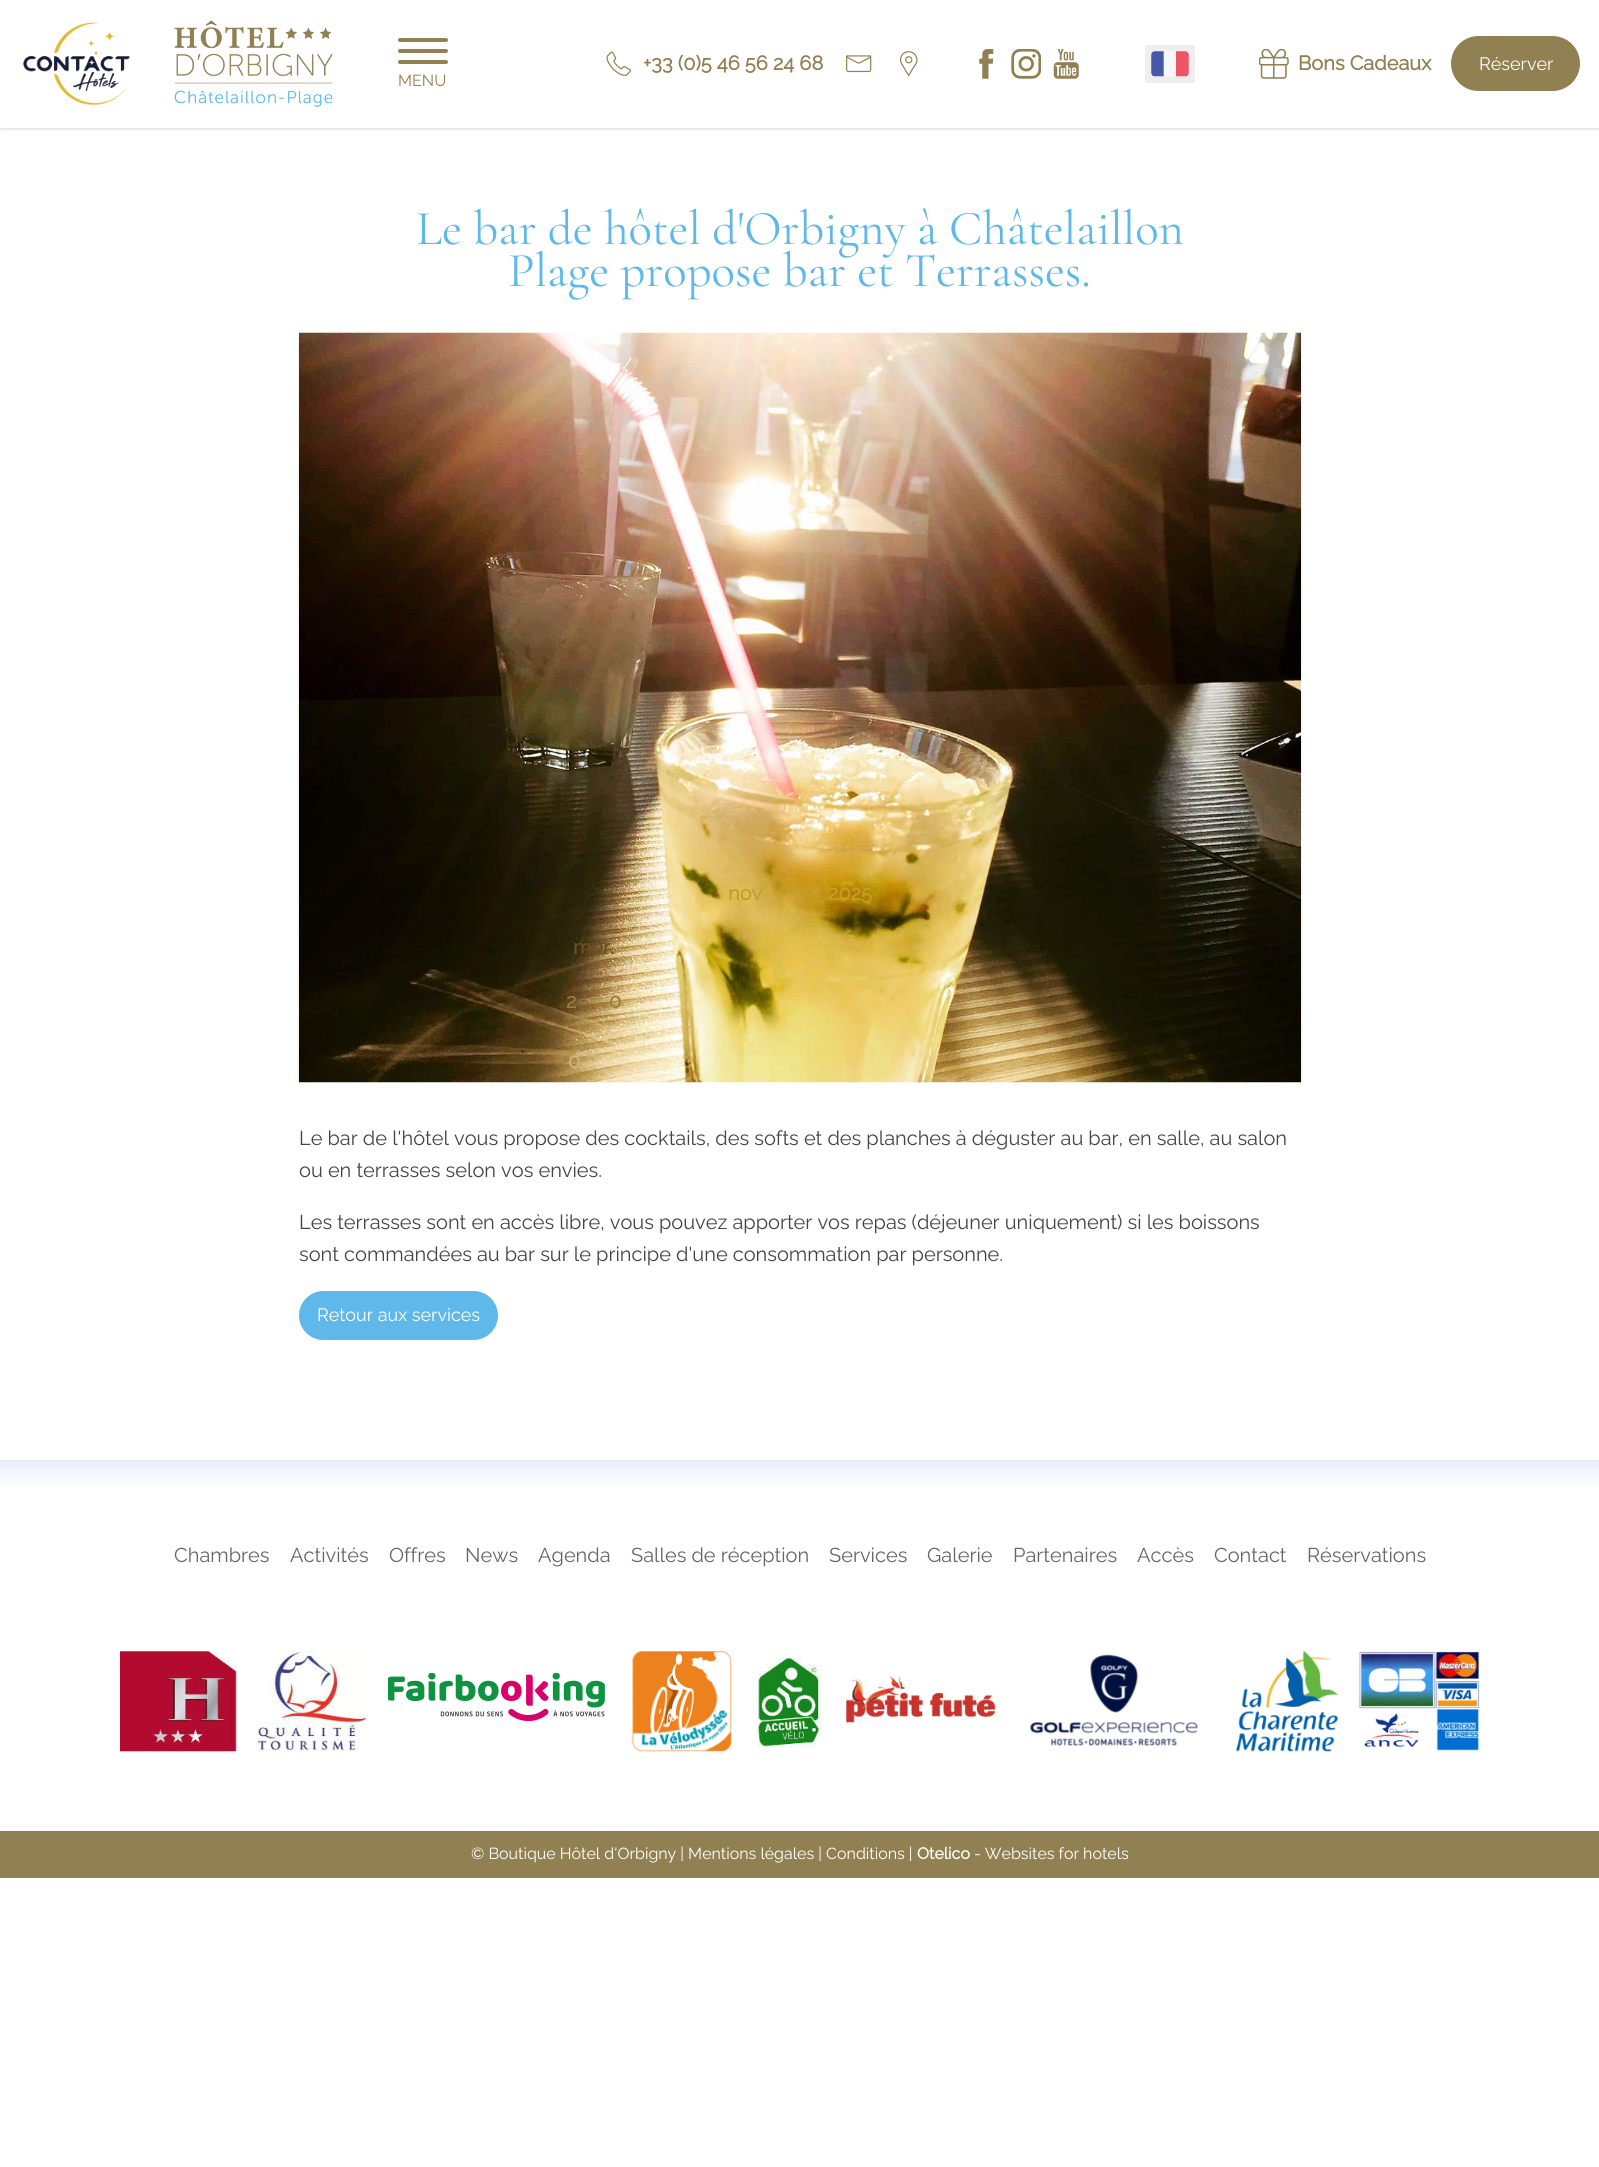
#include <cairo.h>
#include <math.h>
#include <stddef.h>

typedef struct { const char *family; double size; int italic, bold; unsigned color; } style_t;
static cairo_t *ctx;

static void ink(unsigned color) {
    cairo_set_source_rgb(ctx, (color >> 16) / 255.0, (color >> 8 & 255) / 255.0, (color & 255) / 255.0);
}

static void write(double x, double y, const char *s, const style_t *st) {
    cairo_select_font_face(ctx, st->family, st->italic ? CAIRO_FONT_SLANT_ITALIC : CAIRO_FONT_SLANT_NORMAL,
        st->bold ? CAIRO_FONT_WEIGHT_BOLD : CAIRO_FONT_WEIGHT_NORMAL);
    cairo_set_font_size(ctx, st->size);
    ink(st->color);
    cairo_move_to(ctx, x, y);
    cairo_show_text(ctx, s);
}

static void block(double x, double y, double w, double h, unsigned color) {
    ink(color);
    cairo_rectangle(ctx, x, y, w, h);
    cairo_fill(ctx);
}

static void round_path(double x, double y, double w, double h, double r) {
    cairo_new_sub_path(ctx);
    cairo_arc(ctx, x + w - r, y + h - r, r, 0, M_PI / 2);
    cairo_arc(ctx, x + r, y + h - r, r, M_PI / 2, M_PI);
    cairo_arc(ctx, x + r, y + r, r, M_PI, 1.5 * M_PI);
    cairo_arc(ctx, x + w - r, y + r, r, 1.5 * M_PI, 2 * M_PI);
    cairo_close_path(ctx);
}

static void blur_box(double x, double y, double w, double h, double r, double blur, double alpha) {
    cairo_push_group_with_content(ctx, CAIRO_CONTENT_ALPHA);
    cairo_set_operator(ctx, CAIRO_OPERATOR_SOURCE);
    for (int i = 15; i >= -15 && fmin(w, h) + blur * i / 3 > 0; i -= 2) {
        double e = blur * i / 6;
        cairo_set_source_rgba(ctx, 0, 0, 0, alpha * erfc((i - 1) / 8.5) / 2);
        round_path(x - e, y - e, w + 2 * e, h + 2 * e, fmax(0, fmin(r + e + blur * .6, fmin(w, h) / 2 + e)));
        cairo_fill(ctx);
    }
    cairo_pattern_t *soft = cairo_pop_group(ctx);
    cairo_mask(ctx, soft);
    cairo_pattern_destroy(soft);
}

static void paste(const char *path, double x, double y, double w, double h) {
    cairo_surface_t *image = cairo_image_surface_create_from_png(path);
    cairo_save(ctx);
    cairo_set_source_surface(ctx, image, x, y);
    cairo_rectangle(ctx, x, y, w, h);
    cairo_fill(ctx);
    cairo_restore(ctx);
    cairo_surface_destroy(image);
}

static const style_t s1 = {"Raleway", 20, 0, 1, 0x918052};
static const style_t s2 = {"Raleway Thin", 18, 0, 0, 0xffffff};
static const style_t s3 = {"Raleway Thin", 16, 0, 0, 0x918052};
static const style_t s4 = {"Cormorant Garamond Light", 48.8, 0, 0, 0x5eb8e9};
static const style_t s5 = {"Raleway Thin", 20, 0, 0, 0x454545};
static const style_t s6 = {"Raleway", 20, 0, 1, 0xc79d27};
static const style_t s7 = {"Raleway", 20, 0, 1, 0x694f27};
static const style_t s8 = {"Raleway", 20, 0, 1, 0x9a7b44};
static const style_t s9 = {"Raleway", 20, 0, 1, 0xd1b578};
static const style_t s10 = {"Raleway Thin", 20, 0, 0, 0x666666};
static const style_t s11 = {"Raleway Thin", 16, 0, 0, 0xffffff};
static const style_t s12 = {"Raleway", 16, 0, 1, 0xffffff};

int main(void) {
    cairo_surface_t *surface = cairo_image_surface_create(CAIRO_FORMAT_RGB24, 1599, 2167);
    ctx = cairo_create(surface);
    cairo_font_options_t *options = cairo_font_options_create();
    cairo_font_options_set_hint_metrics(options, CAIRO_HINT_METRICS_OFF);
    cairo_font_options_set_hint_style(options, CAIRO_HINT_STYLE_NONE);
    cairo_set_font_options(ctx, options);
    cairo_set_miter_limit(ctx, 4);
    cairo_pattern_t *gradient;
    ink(0xffffff);
    cairo_paint(ctx);
    ink(0x000000);
    blur_box(0, 3, 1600, 127, 0, 1, 0.1);
    block(0, 2, 1599, 126, 0xffffff);
    paste("pic1.png", 23, 22, 107, 84);
    paste("pic2.png", 174, 20, 159, 88);
    paste("pic3.png", 606, 51, 25, 25);
    write(643, 70, "+33 (0)5 46 56 24 68", &s1);
    paste("pic4.png", 846, 55, 26, 18);
    paste("pic5.png", 899, 51, 19, 26);
    paste("pic6.png", 979, 49, 15, 30);
    paste("pic7.png", 1011, 49, 30, 30);
    paste("pic8.png", 1053, 49, 26, 30);
    block(1145, 45, 50, 38, 0xefefef);
    paste("pic9.png", 1151, 51, 38, 26);
    paste("pic10.png", 1259, 49, 30, 30);
    write(1298, 70, "Bons Cadeaux", &s1);
    round_path(1451, 36, 129, 55, 27.5);
    cairo_fill(ctx);
    write(1479, 70, "Réserver", &s2);
    ink(0x918052);
    round_path(398, 60, 50, 4, 2);
    cairo_fill(ctx);
    round_path(398, 38, 50, 4, 2);
    cairo_fill(ctx);
    round_path(398, 49, 50, 4, 2);
    cairo_fill(ctx);
    write(398, 86, "MENU", &s3);
    write(416, 244, "Le bar de hôtel d'Orbigny à Châtelaillon", &s4);
    write(508, 286, "Plage propose bar et Terrasses.", &s4);
    paste("pic11.png", 298, 332, 1004, 751);
    write(299, 1145, "Le bar de l'hôtel vous propose des cocktails, des softs et des planches à déguster au bar, en salle, au salon", &s5);
    write(299, 1177, "ou en terrasses selon vos envies.", &s5);
    write(299, 1229, "Les terrasses sont en accès libre, vous pouvez apporter vos repas (déjeuner uniquement) si les boissons", &s5);
    write(299, 1261, "sont commandées au bar sur le principe d'une consommation par personne.", &s5);
    ink(0x5eb8e9);
    round_path(299, 1291, 199, 49, 24.5);
    cairo_fill(ctx);
    write(317, 1321, "Retour aux services", &s2);
    write(728, 900, "nov", &s6);
    write(828, 900, "2025", &s6);
    write(573, 954, "mer.", &s7);
    write(566, 1008, "2", &s8);
    write(609, 1008, "0", &s8);
    write(568, 1068, "0", &s9);
    gradient = cairo_pattern_create_linear(800, 1460, 800, 1498);
    cairo_pattern_add_color_stop_rgba(gradient, 0, 0.902, 0.929, 0.98, 1);
    cairo_pattern_add_color_stop_rgba(gradient, 0.19, 0.929, 0.949, 0.984, 1);
    cairo_pattern_add_color_stop_rgba(gradient, 0.34, 0.949, 0.961, 0.988, 1);
    cairo_pattern_add_color_stop_rgba(gradient, 0.47, 0.965, 0.973, 0.992, 1);
    cairo_pattern_add_color_stop_rgba(gradient, 0.56, 0.973, 0.98, 0.996, 1);
    cairo_pattern_add_color_stop_rgba(gradient, 0.65, 0.98, 0.988, 0.996, 1);
    cairo_pattern_add_color_stop_rgba(gradient, 0.73, 0.988, 0.992, 0.996, 1);
    cairo_pattern_add_color_stop_rgba(gradient, 0.8, 0.992, 0.996, 1, 1);
    cairo_pattern_add_color_stop_rgba(gradient, 0.86, 0.996, 0.996, 1, 1);
    cairo_pattern_add_color_stop_rgba(gradient, 0.91, 1, 1, 1, 1);
    cairo_pattern_add_color_stop_rgba(gradient, 1, 1, 1, 1, 1);
    cairo_set_source(ctx, gradient);
    cairo_pattern_destroy(gradient);
    cairo_rectangle(ctx, 0, 1460, 1599, 29);
    cairo_fill(ctx);
    write(174, 1562, "Chambres", &s10);
    write(290, 1562, "Activités", &s10);
    write(389, 1562, "Offres", &s10);
    write(465, 1562, "News", &s10);
    write(538, 1562, "Agenda", &s10);
    write(631, 1562, "Salles de réception", &s10);
    write(829, 1562, "Services", &s10);
    write(927, 1562, "Galerie", &s10);
    write(1013, 1562, "Partenaires", &s10);
    write(1137, 1562, "Accès", &s10);
    write(1214, 1562, "Contact", &s10);
    write(1307, 1562, "Réservations", &s10);
    paste("pic12.png", 120, 1651, 117, 101);
    paste("pic13.png", 256, 1651, 112, 101);
    paste("pic14.png", 388, 1673, 217, 48);
    paste("pic15.png", 632, 1651, 100, 101);
    paste("pic16.png", 751, 1657, 75, 91);
    paste("pic17.png", 846, 1676, 150, 47);
    paste("pic18.png", 1030, 1654, 169, 92);
    paste("pic19.png", 1236, 1651, 103, 101);
    paste("pic20.png", 1358, 1651, 122, 100);
    block(0, 1831, 1599, 47, 0x918052);
    write(471, 1859, "© Boutique Hôtel d'Orbigny | Mentions légales | Conditions |", &s11);
    write(917, 1859, "Otelico", &s12);
    write(974, 1859, "- Websites for hotels", &s11);
    cairo_surface_write_to_png(surface, "screenshot.png");
    cairo_font_options_destroy(options);
    cairo_destroy(ctx);
    cairo_surface_destroy(surface);
    return 0;
}
